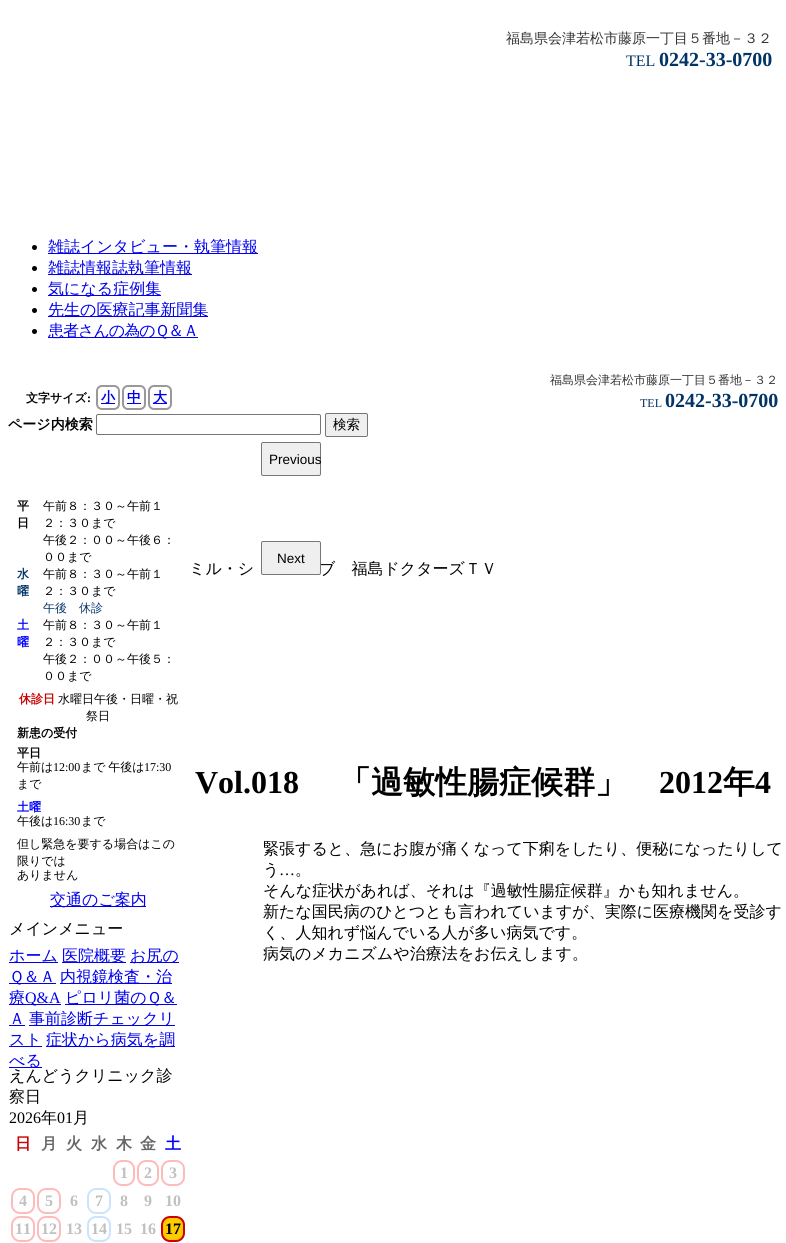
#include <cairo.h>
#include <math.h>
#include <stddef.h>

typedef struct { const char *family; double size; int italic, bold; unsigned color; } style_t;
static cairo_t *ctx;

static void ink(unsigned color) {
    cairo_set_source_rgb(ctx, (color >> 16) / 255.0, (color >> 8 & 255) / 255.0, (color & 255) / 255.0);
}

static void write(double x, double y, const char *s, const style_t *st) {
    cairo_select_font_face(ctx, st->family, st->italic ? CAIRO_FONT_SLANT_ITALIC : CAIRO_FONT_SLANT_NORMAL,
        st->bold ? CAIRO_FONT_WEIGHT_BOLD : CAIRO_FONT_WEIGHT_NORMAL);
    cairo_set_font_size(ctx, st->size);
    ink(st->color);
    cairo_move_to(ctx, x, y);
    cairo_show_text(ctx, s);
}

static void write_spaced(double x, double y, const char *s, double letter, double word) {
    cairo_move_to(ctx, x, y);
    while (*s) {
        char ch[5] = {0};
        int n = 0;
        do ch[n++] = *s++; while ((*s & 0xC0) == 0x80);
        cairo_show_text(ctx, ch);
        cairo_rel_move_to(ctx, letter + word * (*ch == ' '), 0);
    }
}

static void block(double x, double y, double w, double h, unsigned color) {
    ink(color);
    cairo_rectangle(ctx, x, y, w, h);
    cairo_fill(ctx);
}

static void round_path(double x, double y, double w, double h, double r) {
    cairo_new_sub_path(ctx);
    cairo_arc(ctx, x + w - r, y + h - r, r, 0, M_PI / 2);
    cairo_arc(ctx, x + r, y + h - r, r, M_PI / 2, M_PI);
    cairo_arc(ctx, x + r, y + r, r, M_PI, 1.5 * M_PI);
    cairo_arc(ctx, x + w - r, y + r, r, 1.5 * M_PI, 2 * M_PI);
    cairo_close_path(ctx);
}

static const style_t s1 = {"WenQuanYi Zen Hei Medium", 14, 0, 0, 0x333333};
static const style_t s2 = {"Liberation Serif", 16, 0, 0, 0x003366};
static const style_t s3 = {"Liberation Serif", 20, 0, 1, 0x003366};
static const style_t s4 = {"WenQuanYi Zen Hei Medium", 16, 0, 0, 0x0000ee};
static const style_t s5 = {"WenQuanYi Zen Hei", 12, 0, 1, 0x000000};
static const style_t s6 = {"Liberation Serif", 12, 0, 1, 0x000000};
static const style_t s7 = {"WenQuanYi Zen Hei", 14, 0, 1, 0x0000ee};
static const style_t s8 = {"WenQuanYi Zen Hei Medium", 12, 0, 0, 0x333333};
static const style_t s9 = {"Liberation Serif", 12, 0, 0, 0x003366};
static const style_t s10 = {"WenQuanYi Zen Hei", 14, 0, 1, 0x000000};
static const style_t s11 = {"WenQuanYi Zen Hei Medium", 13.5, 0, 0, 0x000000};
static const style_t s12 = {"WenQuanYi Zen Hei Medium", 12, 0, 0, 0x000000};
static const style_t s13 = {"WenQuanYi Zen Hei", 12, 0, 1, 0x003366};
static const style_t s14 = {"WenQuanYi Zen Hei Medium", 12, 0, 0, 0x003366};
static const style_t s15 = {"WenQuanYi Zen Hei", 12, 0, 1, 0x0000ff};
static const style_t s16 = {"WenQuanYi Zen Hei", 12, 0, 1, 0xcc0000};
static const style_t s17 = {"Liberation Serif", 12, 0, 0, 0x000000};
static const style_t s18 = {"WenQuanYi Zen Hei Medium", 16, 0, 0, 0x000000};
static const style_t s19 = {"Liberation Serif", 16, 0, 0, 0x0000ee};
static const style_t s20 = {"Liberation Serif", 16, 0, 0, 0x000000};
static const style_t s21 = {"WenQuanYi Zen Hei", 16, 0, 1, 0xcc0000};
static const style_t s22 = {"WenQuanYi Zen Hei", 16, 0, 1, 0x666666};
static const style_t s23 = {"WenQuanYi Zen Hei", 16, 0, 1, 0x0000ff};
static const style_t s24 = {"Liberation Serif", 16, 0, 1, 0xc0c0c0};
static const style_t s25 = {"Liberation Serif", 16, 0, 1, 0x000000};
static const style_t s26 = {"Liberation Sans", 13.5, 0, 0, 0x000000};
static const style_t s27 = {"Liberation Serif", 32, 0, 1, 0x000000};
static const style_t s28 = {"WenQuanYi Zen Hei", 32, 0, 1, 0x000000};

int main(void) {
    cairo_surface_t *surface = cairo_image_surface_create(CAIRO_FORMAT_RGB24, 786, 1243);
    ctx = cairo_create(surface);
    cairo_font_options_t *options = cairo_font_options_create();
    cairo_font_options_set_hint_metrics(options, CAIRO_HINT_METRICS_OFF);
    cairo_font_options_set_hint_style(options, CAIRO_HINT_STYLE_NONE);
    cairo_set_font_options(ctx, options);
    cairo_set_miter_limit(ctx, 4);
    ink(0xffffff);
    cairo_paint(ctx);
    write(506, 43, "福島県会津若松市藤原一丁目５番地－３２", &s1);
    write(626, 66, "TEL", &s2);
    write(659, 66, "0242-33-0700", &s3);
    ink(0x000000);
    cairo_new_path(ctx);
    cairo_arc(ctx, 34.5, 247.5, 2.5, 0, 2 * M_PI);
    cairo_fill(ctx);
    block(48, 253, 210, 1, 0x0000ee);
    write(48, 252, "雑誌インタビュー・執筆情報", &s4);
    ink(0x000000);
    cairo_new_path(ctx);
    cairo_arc(ctx, 34.5, 268.5, 2.5, 0, 2 * M_PI);
    cairo_fill(ctx);
    block(48, 274, 144, 1, 0x0000ee);
    write(48, 273, "雑誌情報誌執筆情報", &s4);
    ink(0x000000);
    cairo_new_path(ctx);
    cairo_arc(ctx, 34.5, 289.5, 2.5, 0, 2 * M_PI);
    cairo_fill(ctx);
    block(48, 295, 113, 1, 0x0000ee);
    write(48, 294, "気になる症例集", &s4);
    ink(0x000000);
    cairo_new_path(ctx);
    cairo_arc(ctx, 34.5, 310.5, 2.5, 0, 2 * M_PI);
    cairo_fill(ctx);
    block(48, 316, 160, 1, 0x0000ee);
    write(48, 315, "先生の医療記事新聞集", &s4);
    ink(0x000000);
    cairo_new_path(ctx);
    cairo_arc(ctx, 34.5, 331.5, 2.5, 0, 2 * M_PI);
    cairo_fill(ctx);
    block(48, 337, 150, 1, 0x0000ee);
    write_spaced(48, 336, "患者さんの為のＱ＆Ａ", -1, 0);
    write(26, 402, "文字サイズ", &s5);
    write(87, 402, ":", &s6);
    round_path(97, 386, 22, 23, 5);
    ink(0x999999);
    cairo_stroke(ctx);
    block(101, 403, 14, 1, 0x0000ee);
    write(101, 402, "小", &s7);
    round_path(123, 386, 22, 23, 5);
    ink(0x999999);
    cairo_stroke(ctx);
    block(127, 403, 14, 1, 0x0000ee);
    write(127, 402, "中", &s7);
    round_path(149, 386, 22, 23, 5);
    ink(0x999999);
    cairo_stroke(ctx);
    block(153, 403, 14, 1, 0x0000ee);
    write(153, 402, "大", &s7);
    write(550, 384, "福島県会津若松市藤原一丁目５番地－３２", &s8);
    write(640, 407, "TEL", &s9);
    write(665, 407, "0242-33-0700", &s3);
    write(8, 429, "ページ内検索", &s10);
    round_path(96.5, 414.5, 224, 20, 1.5);
    ink(0x767676);
    cairo_set_line_width(ctx, 1);
    cairo_stroke(ctx);
    ink(0xefefef);
    round_path(325.5, 413.5, 42, 23, 1.5);
    cairo_fill_preserve(ctx);
    ink(0x767676);
    cairo_stroke(ctx);
    write(333, 429, "検索", &s11);
    write(17, 510, "平", &s5);
    write(17, 527, "日", &s5);
    write(43, 510, "午前８：３０～午前１", &s12);
    write(43, 527, "２：３０まで", &s12);
    write(43, 544, "午後２：００～午後６：", &s12);
    write(43, 561, "００まで", &s12);
    write(17, 578, "水", &s13);
    write(17, 595, "曜", &s13);
    write(43, 578, "午前８：３０～午前１", &s12);
    write(43, 595, "２：３０まで", &s12);
    write(43, 612, "午後　休診", &s14);
    write(17, 629, "土", &s15);
    write(17, 646, "曜", &s15);
    write(43, 629, "午前８：３０～午前１", &s12);
    write(43, 646, "２：３０まで", &s12);
    write(43, 663, "午後２：００～午後５：", &s12);
    write(43, 680, "００まで", &s12);
    write(19, 703, "休診日", &s16);
    write(58, 703, "水曜日午後・日曜・祝", &s12);
    write(86, 720, "祭日", &s12);
    write(17, 737, "新患の受付", &s5);
    write(17, 757, "平日", &s5);
    write(17, 771, "午前は", &s12);
    write(53, 771, "12:00", &s17);
    cairo_select_font_face(ctx, "WenQuanYi Zen Hei Medium", CAIRO_FONT_SLANT_NORMAL, CAIRO_FONT_WEIGHT_NORMAL);
    write_spaced(81, 771, "まで 午後は", 0, -1);
    write(144, 771, "17:30", &s17);
    write(17, 788, "まで", &s12);
    write(17, 811, "土曜", &s15);
    write(17, 825, "午後は", &s12);
    write(53, 825, "16:30", &s17);
    write(81, 825, "まで", &s12);
    write(17, 848, "但し緊急を要する場合はこの", &s12);
    write(17, 865, "限りでは", &s12);
    write(17, 879, "ありません", &s12);
    block(50, 906, 96, 1, 0x0000ee);
    write(50, 905, "交通のご案内", &s4);
    write(9, 934, "メインメニュー", &s18);
    block(9, 962, 49, 1, 0x0000ee);
    write(9, 961, "ホーム", &s4);
    block(62, 962, 64, 1, 0x0000ee);
    write(62, 961, "医院概要", &s4);
    block(130, 962, 49, 1, 0x0000ee);
    write(130, 961, "お尻の", &s4);
    block(9, 983, 47, 1, 0x0000ee);
    write(9, 982, "Ｑ＆Ａ", &s4);
    block(60, 983, 112, 1, 0x0000ee);
    write(60, 982, "内視鏡検査・治", &s4);
    block(9, 1004, 52, 1, 0x0000ee);
    write(9, 1003, "療", &s4);
    write(25, 1003, "Q&A", &s19);
    block(65, 1004, 112, 1, 0x0000ee);
    write(65, 1003, "ピロリ菌のＱ＆", &s4);
    write(9, 1024, "Ａ", &s4);
    block(9, 1025, 16, 1, 0x0000ee);
    block(29, 1025, 146, 1, 0x0000ee);
    write(29, 1024, "事前診断チェックリ", &s4);
    block(9, 1046, 33, 1, 0x0000ee);
    write(9, 1045, "スト", &s4);
    block(46, 1046, 129, 1, 0x0000ee);
    write(46, 1045, "症状から病気を調", &s4);
    block(9, 1067, 33, 1, 0x0000ee);
    write(9, 1066, "べる", &s4);
    write(9, 1081, "えんどうクリニック診", &s18);
    write(9, 1102, "察日", &s18);
    write(9, 1123, "2026", &s20);
    write(41, 1123, "年", &s18);
    write(57, 1123, "01", &s20);
    write(73, 1123, "月", &s18);
    write(15, 1149, "日", &s21);
    write(41, 1149, "月", &s22);
    write(66, 1149, "火", &s22);
    write(91, 1149, "水", &s22);
    write(116, 1149, "木", &s22);
    write(140, 1149, "金", &s22);
    write(165, 1149, "土", &s23);
    round_path(114, 1161, 20, 24, 8);
    ink(0xffbbbb);
    cairo_set_line_width(ctx, 2);
    cairo_stroke(ctx);
    write(120, 1178, "1", &s24);
    round_path(138, 1161, 20, 24, 8);
    ink(0xffbbbb);
    cairo_stroke(ctx);
    write(144, 1178, "2", &s24);
    round_path(162, 1161, 22, 24, 8);
    ink(0xffbbbb);
    cairo_stroke(ctx);
    write(169, 1178, "3", &s24);
    round_path(12, 1189, 22, 24, 8);
    ink(0xffbbbb);
    cairo_stroke(ctx);
    write(19, 1206, "4", &s24);
    round_path(38, 1189, 22, 24, 8);
    ink(0xffbbbb);
    cairo_stroke(ctx);
    write(45, 1206, "5", &s24);
    write(70, 1206, "6", &s24);
    round_path(88, 1189, 22, 24, 8);
    ink(0xcae4ff);
    cairo_stroke(ctx);
    write(95, 1206, "7", &s24);
    write(120, 1206, "8", &s24);
    write(144, 1206, "9", &s24);
    write(165, 1206, "10", &s24);
    round_path(12, 1217, 22, 24, 8);
    ink(0xffbbbb);
    cairo_stroke(ctx);
    write(15, 1234, "11", &s24);
    round_path(38, 1217, 22, 24, 8);
    ink(0xffbbbb);
    cairo_stroke(ctx);
    write(41, 1234, "12", &s24);
    write(66, 1234, "13", &s24);
    round_path(88, 1217, 22, 24, 8);
    ink(0xcae4ff);
    cairo_stroke(ctx);
    write(91, 1234, "14", &s24);
    write(116, 1234, "15", &s24);
    write(140, 1234, "16", &s24);
    ink(0xffcc00);
    round_path(162, 1217, 22, 24, 8);
    cairo_fill_preserve(ctx);
    ink(0xcc0000);
    cairo_stroke(ctx);
    write(165, 1234, "17", &s25);
    ink(0xefefef);
    round_path(261.5, 442.5, 59, 33, 1.5);
    cairo_fill_preserve(ctx);
    ink(0x767676);
    cairo_set_line_width(ctx, 1);
    cairo_stroke(ctx);
    write(269, 464, "Previous", &s26);
    write(319, 574, "ブ　福島ドクターズＴＶ", &s18);
    ink(0xefefef);
    round_path(261.5, 541.5, 59, 33, 1.5);
    cairo_fill_preserve(ctx);
    ink(0x767676);
    cairo_stroke(ctx);
    write(277, 563, "Next", &s26);
    write(189, 574, "ミル・シ", &s18);
    write(195, 793, "Vol.018", &s27);
    write(339, 793, "「過敏性腸症候群」", &s28);
    write(659, 793, "2012", &s27);
    write(723, 793, "年", &s28);
    write(755, 793, "4", &s27);
    write(263, 854, "緊張すると、急にお腹が痛くなって下痢をしたり、便秘になったりして", &s18);
    write(263, 875, "う", &s18);
    write(279, 875, "…", &s20);
    write(295, 875, "。", &s18);
    write(263, 896, "そんな症状があれば、それは『過敏性腸症候群』かも知れません。", &s18);
    write(263, 917, "新たな国民病のひとつとも言われていますが、実際に医療機関を受診す", &s18);
    write(263, 938, "く、人知れず悩んでいる人が多い病気です。", &s18);
    write(263, 959, "病気のメカニズムや治療法をお伝えします。", &s18);
    cairo_surface_write_to_png(surface, "screenshot.png");
    cairo_font_options_destroy(options);
    cairo_destroy(ctx);
    cairo_surface_destroy(surface);
    return 0;
}
